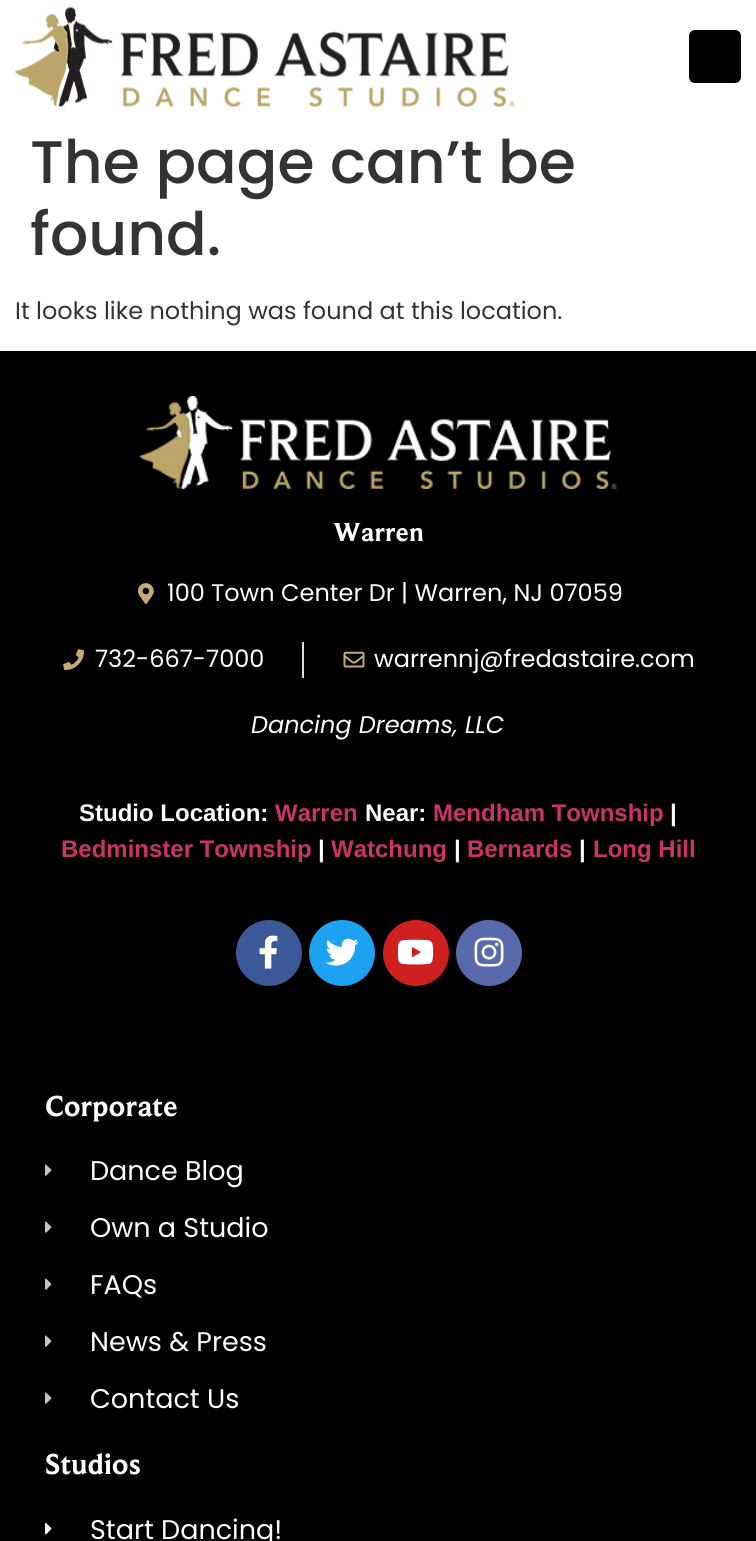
#include <cairo.h>
#include <math.h>
#include <stddef.h>

typedef struct { const char *family; double size; int italic, bold; unsigned color; } style_t;
static cairo_t *ctx;

static void ink(unsigned color) {
    cairo_set_source_rgb(ctx, (color >> 16) / 255.0, (color >> 8 & 255) / 255.0, (color & 255) / 255.0);
}

static void write(double x, double y, const char *s, const style_t *st) {
    cairo_select_font_face(ctx, st->family, st->italic ? CAIRO_FONT_SLANT_ITALIC : CAIRO_FONT_SLANT_NORMAL,
        st->bold ? CAIRO_FONT_WEIGHT_BOLD : CAIRO_FONT_WEIGHT_NORMAL);
    cairo_set_font_size(ctx, st->size);
    ink(st->color);
    cairo_move_to(ctx, x, y);
    cairo_show_text(ctx, s);
}

static void block(double x, double y, double w, double h, unsigned color) {
    ink(color);
    cairo_rectangle(ctx, x, y, w, h);
    cairo_fill(ctx);
}

static void round_path(double x, double y, double w, double h, double r) {
    cairo_new_sub_path(ctx);
    cairo_arc(ctx, x + w - r, y + h - r, r, 0, M_PI / 2);
    cairo_arc(ctx, x + r, y + h - r, r, M_PI / 2, M_PI);
    cairo_arc(ctx, x + r, y + r, r, M_PI, 1.5 * M_PI);
    cairo_arc(ctx, x + w - r, y + r, r, 1.5 * M_PI, 2 * M_PI);
    cairo_close_path(ctx);
}

static void paste(const char *path, double x, double y, double w, double h) {
    cairo_surface_t *image = cairo_image_surface_create_from_png(path);
    cairo_save(ctx);
    cairo_set_source_surface(ctx, image, x, y);
    cairo_rectangle(ctx, x, y, w, h);
    cairo_fill(ctx);
    cairo_restore(ctx);
    cairo_surface_destroy(image);
}

static const style_t s1 = {"Poppins Medium", 60, 0, 0, 0x333333};
static const style_t s2 = {"Poppins", 24, 0, 0, 0x333333};
static const style_t s3 = {"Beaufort", 27, 0, 1, 0xffffff};
static const style_t s4 = {"Poppins", 24, 0, 0, 0xffffff};
static const style_t s5 = {"Poppins", 24, 1, 0, 0xffffff};
static const style_t s6 = {"Liberation Sans", 24, 0, 1, 0xffffff};
static const style_t s7 = {"Liberation Sans", 24, 0, 1, 0xcc3366};
static const style_t s8 = {"Beaufort", 30, 0, 1, 0xffffff};
static const style_t s9 = {"Poppins", 27, 0, 0, 0xffffff};

int main(void) {
    cairo_surface_t *surface = cairo_image_surface_create(CAIRO_FORMAT_RGB24, 756, 1541);
    ctx = cairo_create(surface);
    cairo_font_options_t *options = cairo_font_options_create();
    cairo_font_options_set_hint_metrics(options, CAIRO_HINT_METRICS_OFF);
    cairo_font_options_set_hint_style(options, CAIRO_HINT_STYLE_NONE);
    cairo_set_font_options(ctx, options);
    cairo_set_miter_limit(ctx, 4);
    ink(0xffffff);
    cairo_paint(ctx);
    paste("pic1.png", 15, 7, 500, 100);
    ink(0x000000);
    round_path(689, 30, 52, 53, 6);
    cairo_fill(ctx);
    write(30, 183, "The page can’t be", &s1);
    write(30, 255, "found.", &s1);
    write(15, 319, "It looks like nothing was found at this location.", &s2);
    block(0, 351, 756, 1190, 0x000000);
    paste("pic2.png", 139, 396, 478, 93);
    write(333, 541, "Warren", &s3);
    paste("pic3.png", 138, 583, 16, 22);
    write(167, 601, "100 Town Center Dr | Warren, NJ 07059", &s4);
    paste("pic4.png", 63, 649, 21, 22);
    write(95, 667, "732-667-7000", &s4);
    block(302, 642, 2, 36, 0xdddddd);
    paste("pic5.png", 343, 651, 22, 17);
    write(374, 667, "warrennj@fredastaire.com", &s4);
    write(251, 733, "Dancing Dreams, LLC", &s5);
    write(79, 821, "Studio Location:", &s6);
    write(275, 821, "Warren", &s7);
    write(365, 821, "Near:", &s6);
    write(433, 821, "Mendham Township", &s7);
    write(670, 821, "|", &s6);
    write(61, 857, "Bedminster Township", &s7);
    write(318, 857, "|", &s6);
    write(331, 857, "Watchung", &s7);
    write(454, 857, "|", &s6);
    write(467, 857, "Bernards", &s7);
    write(579, 857, "|", &s6);
    write(593, 857, "Long Hill", &s7);
    ink(0x3b5998);
    cairo_new_path(ctx);
    cairo_arc(ctx, 269, 953, 33, 0, 2 * M_PI);
    cairo_fill(ctx);
    paste("pic6.png", 259, 935, 19, 34);
    ink(0x1da1f2);
    cairo_arc(ctx, 342, 953, 33, 0, 2 * M_PI);
    cairo_fill(ctx);
    paste("pic7.png", 325, 938, 34, 28);
    ink(0xcd201f);
    cairo_arc(ctx, 416, 953, 33, 0, 2 * M_PI);
    cairo_fill(ctx);
    paste("pic8.png", 397, 939, 37, 26);
    ink(0x5869ac);
    cairo_arc(ctx, 489, 953, 33, 0, 2 * M_PI);
    cairo_fill(ctx);
    paste("pic9.png", 474, 937, 30, 30);
    write(45, 1116, "Corporate", &s8);
    paste("pic10.png", 45, 1164, 7, 12);
    write(90, 1180, "Dance Blog", &s9);
    paste("pic10.png", 45, 1221, 7, 12);
    write(90, 1237, "Own a Studio", &s9);
    paste("pic10.png", 45, 1278, 7, 12);
    write(90, 1294, "FAQs", &s9);
    paste("pic10.png", 45, 1335, 7, 12);
    write(90, 1351, "News & Press", &s9);
    paste("pic10.png", 45, 1392, 7, 12);
    write(90, 1408, "Contact Us", &s9);
    write(45, 1474, "Studios", &s8);
    paste("pic11.png", 45, 1523, 7, 12);
    write(90, 1539, "Start Dancing!", &s9);
    cairo_surface_write_to_png(surface, "screenshot.png");
    cairo_font_options_destroy(options);
    cairo_destroy(ctx);
    cairo_surface_destroy(surface);
    return 0;
}
